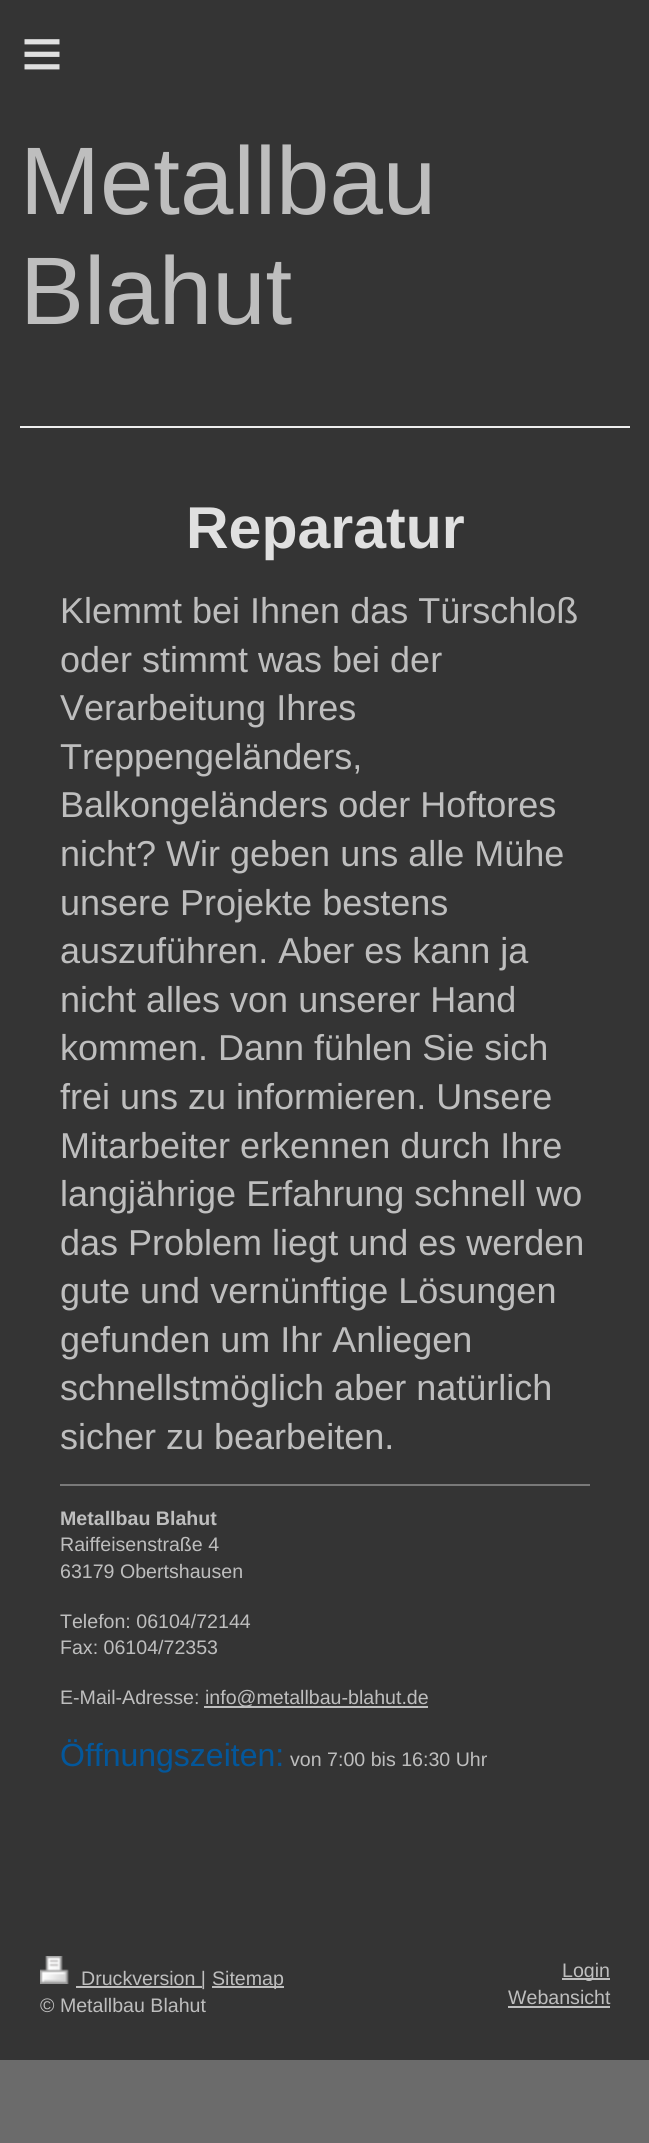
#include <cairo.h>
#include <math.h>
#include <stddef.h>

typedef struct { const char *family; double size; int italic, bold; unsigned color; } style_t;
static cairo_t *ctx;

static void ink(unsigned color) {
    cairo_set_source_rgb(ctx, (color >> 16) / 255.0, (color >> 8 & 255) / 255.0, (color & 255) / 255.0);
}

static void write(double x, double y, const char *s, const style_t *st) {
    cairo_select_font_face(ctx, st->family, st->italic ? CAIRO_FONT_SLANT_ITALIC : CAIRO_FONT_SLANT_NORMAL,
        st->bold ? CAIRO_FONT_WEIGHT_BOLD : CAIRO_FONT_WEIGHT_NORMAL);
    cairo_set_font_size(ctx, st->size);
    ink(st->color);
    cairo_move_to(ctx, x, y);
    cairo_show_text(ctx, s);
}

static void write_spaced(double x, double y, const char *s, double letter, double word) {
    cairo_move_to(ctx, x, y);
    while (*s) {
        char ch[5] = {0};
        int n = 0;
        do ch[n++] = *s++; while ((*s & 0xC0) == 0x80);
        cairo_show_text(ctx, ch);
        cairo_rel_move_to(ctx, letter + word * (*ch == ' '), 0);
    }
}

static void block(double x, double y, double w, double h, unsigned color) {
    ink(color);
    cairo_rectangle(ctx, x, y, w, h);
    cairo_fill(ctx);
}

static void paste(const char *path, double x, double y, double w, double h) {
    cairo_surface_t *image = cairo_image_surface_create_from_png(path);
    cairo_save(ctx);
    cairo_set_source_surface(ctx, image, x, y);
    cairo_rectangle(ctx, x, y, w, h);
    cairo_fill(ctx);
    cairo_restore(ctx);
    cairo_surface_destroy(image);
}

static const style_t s1 = {"Liberation Sans", 96, 0, 0, 0xbebebe};
static const style_t s2 = {"Liberation Sans", 59, 0, 1, 0xe0e0e0};
static const style_t s3 = {"Liberation Sans", 36, 0, 0, 0xbebebe};
static const style_t s4 = {"Liberation Sans", 19.6, 0, 1, 0xbebebe};
static const style_t s5 = {"Liberation Sans", 19.6, 0, 0, 0xbebebe};
static const style_t s6 = {"Liberation Sans", 32, 0, 0, 0x03579b};

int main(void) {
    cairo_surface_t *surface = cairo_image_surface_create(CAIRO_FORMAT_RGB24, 649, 2143);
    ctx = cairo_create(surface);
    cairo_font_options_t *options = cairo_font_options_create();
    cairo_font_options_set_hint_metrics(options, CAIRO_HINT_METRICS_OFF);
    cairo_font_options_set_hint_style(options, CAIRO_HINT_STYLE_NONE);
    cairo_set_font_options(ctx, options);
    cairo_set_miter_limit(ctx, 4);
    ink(0x6b6b6b);
    cairo_paint(ctx);
    block(0, 0, 649, 2060, 0x343434);
    cairo_select_font_face(ctx, "Liberation Sans", CAIRO_FONT_SLANT_NORMAL, CAIRO_FONT_WEIGHT_NORMAL);
    cairo_set_font_size(ctx, 72);
    ink(0xe0e0e0);
    write_spaced(21, 78, "≡", 21, 0);
    write(20, 214, "Metallbau", &s1);
    write(20, 324, "Blahut", &s1);
    block(20, 426, 610, 2, 0xeeeeee);
    write(186, 548, "Reparatur", &s2);
    write(60, 623, "Klemmt bei Ihnen das Türschloß", &s3);
    write(60, 672, "oder stimmt was bei der", &s3);
    write(60, 720, "Verarbeitung Ihres", &s3);
    write(60, 769, "Treppengeländers,", &s3);
    write(60, 817, "Balkongeländers oder Hoftores", &s3);
    write(60, 866, "nicht? Wir geben uns alle Mühe", &s3);
    write(60, 915, "unsere Projekte bestens", &s3);
    write(60, 963, "auszuführen. Aber es kann ja", &s3);
    write(60, 1012, "nicht alles von unserer Hand", &s3);
    write(60, 1060, "kommen. Dann fühlen Sie sich", &s3);
    write(60, 1109, "frei uns zu informieren. Unsere", &s3);
    write(60, 1158, "Mitarbeiter erkennen durch Ihre", &s3);
    write(60, 1206, "langjährige Erfahrung schnell wo", &s3);
    write(60, 1255, "das Problem liegt und es werden", &s3);
    write(60, 1303, "gute und vernünftige Lösungen", &s3);
    write(60, 1352, "gefunden um Ihr Anliegen", &s3);
    write(60, 1400, "schnellstmöglich aber natürlich", &s3);
    write(60, 1449, "sicher zu bearbeiten.", &s3);
    block(60, 1484, 530, 2, 0x797979);
    write(60, 1525, "Metallbau Blahut", &s4);
    write(60, 1551, "Raiffeisenstraße 4", &s5);
    write(60, 1578, "63179 Obertshausen", &s5);
    write(60, 1628, "Telefon: 06104/72144", &s5);
    write(60, 1654, "Fax: 06104/72353", &s5);
    write(60, 1704, "E-Mail-Adresse:", &s5);
    block(204, 1706, 224, 2, 0xbebebe);
    write(205, 1704, "info@metallbau-blahut.de", &s5);
    write(60, 1766, "Öffnungszeiten:", &s6);
    write(290, 1766, "von 7:00 bis 16:30 Uhr", &s5);
    paste("pic1.png", 40, 1956, 29, 28);
    block(76, 1986, 126, 2, 0xbebebe);
    write(81, 1985, "Druckversion |", &s5);
    block(212, 1986, 72, 2, 0xbebebe);
    write(212, 1985, "Sitemap", &s5);
    write(40, 2012, "© Metallbau Blahut", &s5);
    block(562, 1978, 48, 2, 0xbebebe);
    write(562, 1977, "Login", &s5);
    write(508, 2004, "Webansicht", &s5);
    block(508, 2006, 102, 2, 0xbebebe);
    cairo_surface_write_to_png(surface, "screenshot.png");
    cairo_font_options_destroy(options);
    cairo_destroy(ctx);
    cairo_surface_destroy(surface);
    return 0;
}
